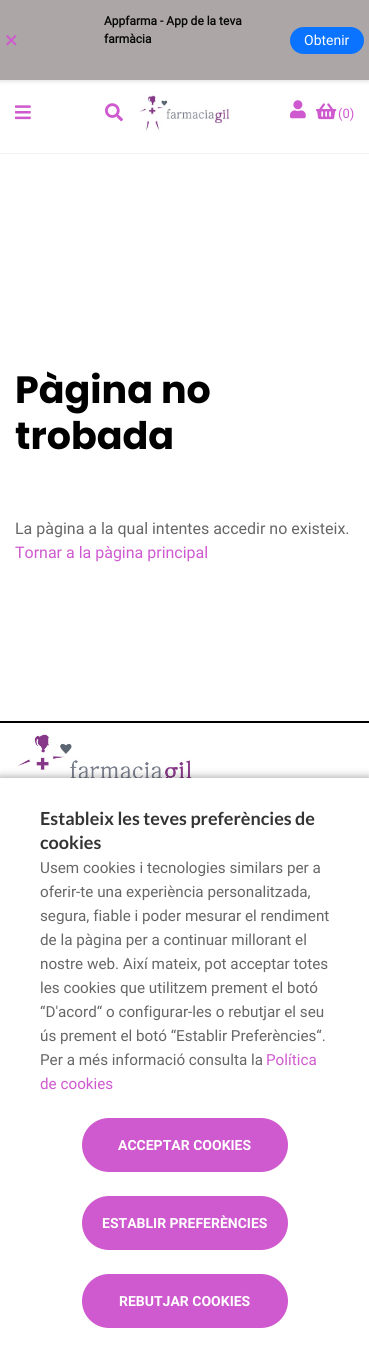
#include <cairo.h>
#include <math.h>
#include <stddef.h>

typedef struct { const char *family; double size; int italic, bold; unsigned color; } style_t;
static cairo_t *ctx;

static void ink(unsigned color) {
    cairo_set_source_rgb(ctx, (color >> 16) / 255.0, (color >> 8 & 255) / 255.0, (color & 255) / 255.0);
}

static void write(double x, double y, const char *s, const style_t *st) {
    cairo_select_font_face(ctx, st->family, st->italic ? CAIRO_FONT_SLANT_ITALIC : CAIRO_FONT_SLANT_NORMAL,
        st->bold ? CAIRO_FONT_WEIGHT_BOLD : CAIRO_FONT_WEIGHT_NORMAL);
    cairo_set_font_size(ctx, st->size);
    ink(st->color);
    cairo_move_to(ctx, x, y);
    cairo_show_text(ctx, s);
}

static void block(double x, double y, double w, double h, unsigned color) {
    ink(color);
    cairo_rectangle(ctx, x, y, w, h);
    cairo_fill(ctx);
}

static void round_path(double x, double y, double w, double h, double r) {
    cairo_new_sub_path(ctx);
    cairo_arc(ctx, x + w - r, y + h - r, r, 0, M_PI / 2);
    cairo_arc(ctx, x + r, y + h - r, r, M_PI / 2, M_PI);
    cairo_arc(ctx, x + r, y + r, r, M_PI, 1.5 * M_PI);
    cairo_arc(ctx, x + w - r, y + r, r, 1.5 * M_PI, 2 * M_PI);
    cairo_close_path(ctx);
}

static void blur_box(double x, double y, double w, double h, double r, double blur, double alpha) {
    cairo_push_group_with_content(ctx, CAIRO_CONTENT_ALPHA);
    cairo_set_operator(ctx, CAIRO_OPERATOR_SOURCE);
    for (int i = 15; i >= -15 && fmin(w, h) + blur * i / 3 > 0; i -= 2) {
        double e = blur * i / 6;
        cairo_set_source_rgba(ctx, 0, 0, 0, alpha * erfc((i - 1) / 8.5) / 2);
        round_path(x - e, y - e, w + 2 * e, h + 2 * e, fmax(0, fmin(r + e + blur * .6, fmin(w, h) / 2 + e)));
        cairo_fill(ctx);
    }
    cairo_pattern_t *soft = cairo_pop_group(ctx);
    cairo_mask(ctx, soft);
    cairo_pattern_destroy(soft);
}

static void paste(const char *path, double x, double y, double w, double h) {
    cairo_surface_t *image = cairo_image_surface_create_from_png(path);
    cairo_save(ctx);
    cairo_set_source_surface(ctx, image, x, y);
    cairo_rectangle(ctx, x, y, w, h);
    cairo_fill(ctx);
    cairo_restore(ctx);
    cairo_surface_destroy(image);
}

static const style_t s1 = {"Roboto", 24, 0, 0, 0xcf59cf};
static const style_t s2 = {"Roboto", 12, 0, 1, 0x070707};
static const style_t s3 = {"Roboto", 14, 0, 0, 0xffffff};
static const style_t s4 = {"Roboto", 13, 0, 0, 0xcf59cf};
static const style_t s5 = {"Poppins", 38, 0, 1, 0x000000};
static const style_t s6 = {"Roboto", 16, 0, 0, 0x666666};
static const style_t s7 = {"Roboto", 16, 0, 0, 0xcf59cf};
static const style_t s8 = {"Lato", 18, 0, 1, 0x343434};
static const style_t s9 = {"Roboto", 15.25, 0, 0, 0x666666};
static const style_t s10 = {"Roboto", 15.25, 0, 0, 0xcf59cf};
static const style_t s11 = {"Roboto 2", 14, 0, 1, 0xffffff};

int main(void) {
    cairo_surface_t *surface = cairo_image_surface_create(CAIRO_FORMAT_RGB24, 369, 1370);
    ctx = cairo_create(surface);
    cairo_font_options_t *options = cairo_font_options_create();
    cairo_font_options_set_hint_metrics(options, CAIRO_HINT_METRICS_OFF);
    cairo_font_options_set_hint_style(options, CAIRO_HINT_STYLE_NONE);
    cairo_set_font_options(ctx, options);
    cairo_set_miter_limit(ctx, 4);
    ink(0xffffff);
    cairo_paint(ctx);
    ink(0x000000);
    blur_box(0, 2, 369, 80, 0, 2, 0.1);
    block(0, 0, 369, 80, 0xaca6a6);
    write(5, 48, "×", &s1);
    write(104, 25, "Appfarma - App de la teva", &s2);
    write(104, 43, "farmàcia", &s2);
    ink(0x0a73ff);
    round_path(290, 27, 74, 27, 13.5);
    cairo_fill(ctx);
    write(304, 45, "Obtenir", &s3);
    block(0, 153, 369, 1, 0xf1f1f1);
    paste("pic1.png", 15, 105, 16, 15);
    paste("pic2.png", 105, 103, 18, 19);
    paste("pic3.png", 139, 95, 91, 36);
    paste("pic4.png", 290, 100, 16, 19);
    paste("pic5.png", 316, 103, 21, 17);
    write(338, 118, "(0)", &s4);
    write(15, 403, "Pàgina no", &s5);
    write(15, 449, "trobada", &s5);
    write(15, 534, "La pàgina a la qual intentes accedir no existeix.", &s6);
    write(15, 558, "Tornar a la pàgina principal", &s7);
    block(0, 721, 369, 2, 0x000000);
    paste("pic6.png", 17, 734, 175, 44);
    ink(0x000000);
    blur_box(0, 779, 369, 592, 0, 5, 0.5);
    block(0, 778, 369, 592, 0xffffff);
    write(40, 825, "Estableix les teves preferències de", &s8);
    write(40, 849, "cookies", &s8);
    write(40, 873, "Usem cookies i tecnologies similars per a", &s9);
    write(40, 897, "oferir-te una experiència personalitzada,", &s9);
    write(40, 921, "segura, fiable i poder mesurar el rendiment", &s9);
    write(40, 945, "de la pàgina per a continuar millorant el", &s9);
    write(40, 969, "nostre web. Així mateix, pot acceptar totes", &s9);
    write(40, 993, "les cookies que utilitzem prement el botó", &s9);
    write(40, 1017, "“D'acord“ o configurar-les o rebutjar el seu", &s9);
    write(40, 1041, "ús prement el botó “Establir Preferències“.", &s9);
    write(40, 1065, "Per a més informació consulta la", &s9);
    write(266, 1065, "Política", &s10);
    write(40, 1089, "de cookies", &s10);
    round_path(81, 1117, 208, 56, 28);
    cairo_fill_preserve(ctx);
    ink(0xffffff);
    cairo_stroke(ctx);
    write(118, 1150, "ACCEPTAR COOKIES", &s11);
    ink(0xcf59cf);
    round_path(81, 1195, 208, 56, 28);
    cairo_fill_preserve(ctx);
    ink(0xffffff);
    cairo_stroke(ctx);
    write(102, 1228, "ESTABLIR PREFERÈNCIES", &s11);
    ink(0xcf59cf);
    round_path(81, 1273, 208, 56, 28);
    cairo_fill_preserve(ctx);
    ink(0xffffff);
    cairo_stroke(ctx);
    write(119, 1306, "REBUTJAR COOKIES", &s11);
    cairo_surface_write_to_png(surface, "screenshot.png");
    cairo_font_options_destroy(options);
    cairo_destroy(ctx);
    cairo_surface_destroy(surface);
    return 0;
}
